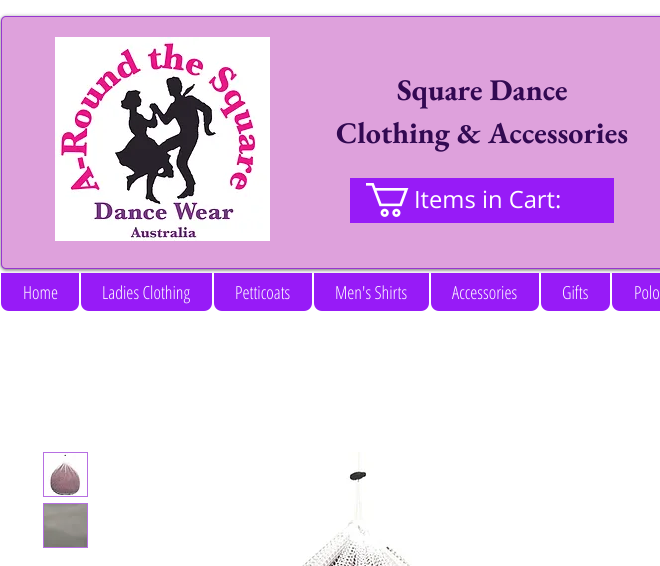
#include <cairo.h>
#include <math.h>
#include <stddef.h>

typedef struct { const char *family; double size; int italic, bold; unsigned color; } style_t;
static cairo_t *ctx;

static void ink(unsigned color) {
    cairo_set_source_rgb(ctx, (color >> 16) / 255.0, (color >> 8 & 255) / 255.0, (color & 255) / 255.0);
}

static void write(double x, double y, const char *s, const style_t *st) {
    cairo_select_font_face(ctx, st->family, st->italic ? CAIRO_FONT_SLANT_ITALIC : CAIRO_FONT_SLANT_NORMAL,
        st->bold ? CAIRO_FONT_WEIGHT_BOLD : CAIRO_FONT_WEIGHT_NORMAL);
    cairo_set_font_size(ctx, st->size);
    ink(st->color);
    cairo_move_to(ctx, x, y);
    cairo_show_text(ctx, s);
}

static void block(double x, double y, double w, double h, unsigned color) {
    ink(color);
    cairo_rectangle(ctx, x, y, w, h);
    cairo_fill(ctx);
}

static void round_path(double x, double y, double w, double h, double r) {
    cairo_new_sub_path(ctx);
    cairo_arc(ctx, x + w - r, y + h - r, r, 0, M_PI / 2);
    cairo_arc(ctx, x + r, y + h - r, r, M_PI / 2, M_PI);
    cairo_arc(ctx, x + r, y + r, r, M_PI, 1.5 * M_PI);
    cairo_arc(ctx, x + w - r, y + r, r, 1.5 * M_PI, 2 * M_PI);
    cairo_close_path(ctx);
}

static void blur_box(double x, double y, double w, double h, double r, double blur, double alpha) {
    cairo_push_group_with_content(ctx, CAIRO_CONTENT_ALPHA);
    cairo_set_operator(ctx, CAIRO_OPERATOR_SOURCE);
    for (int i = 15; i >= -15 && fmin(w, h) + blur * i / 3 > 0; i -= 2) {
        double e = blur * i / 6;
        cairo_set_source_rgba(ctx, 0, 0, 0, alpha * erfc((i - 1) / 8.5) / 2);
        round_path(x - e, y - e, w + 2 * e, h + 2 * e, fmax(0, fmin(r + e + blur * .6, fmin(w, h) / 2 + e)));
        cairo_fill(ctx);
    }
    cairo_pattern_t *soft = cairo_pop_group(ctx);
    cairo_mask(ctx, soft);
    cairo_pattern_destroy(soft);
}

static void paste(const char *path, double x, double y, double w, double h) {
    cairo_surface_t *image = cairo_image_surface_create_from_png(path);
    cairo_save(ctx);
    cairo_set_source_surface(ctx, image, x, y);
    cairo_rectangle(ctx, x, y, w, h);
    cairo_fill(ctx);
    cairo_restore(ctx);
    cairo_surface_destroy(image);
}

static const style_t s1 = {"EB Garamond", 30, 0, 1, 0x320952};
static const style_t s2 = {"Open Sans", 23.75, 0, 0, 0xffffff};
static const style_t s3 = {"Open Sans Condensed Light", 18, 0, 0, 0xffffff};

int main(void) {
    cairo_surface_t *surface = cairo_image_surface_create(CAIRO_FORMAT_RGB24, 660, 566);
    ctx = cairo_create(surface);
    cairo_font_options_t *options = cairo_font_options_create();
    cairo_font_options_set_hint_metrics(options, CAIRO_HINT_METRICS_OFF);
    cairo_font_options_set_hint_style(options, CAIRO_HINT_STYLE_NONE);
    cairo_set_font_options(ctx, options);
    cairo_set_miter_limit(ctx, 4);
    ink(0xffffff);
    cairo_paint(ctx);
    ink(0x000000);
    blur_box(1, 17, 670, 253, 5, 2, 0.6);
    ink(0xdea1dc);
    round_path(1.5, 16.5, 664, 252, 4.5);
    cairo_fill_preserve(ctx);
    ink(0x9737cf);
    cairo_set_line_width(ctx, 1);
    cairo_stroke(ctx);
    paste("pic1.png", 55, 37, 215, 204);
    write(397, 100, "Square Dance", &s1);
    write(336, 143, "Clothing & Accessories", &s1);
    block(350, 178, 264, 45, 0x971bf7);
    paste("pic2.png", 366, 183, 43, 34);
    write(414, 208, "Items in Cart:", &s2);
    ink(0x971bf7);
    cairo_new_path(ctx);
    cairo_move_to(ctx, 1, 273);
    cairo_line_to(ctx, 79, 273);
    cairo_line_to(ctx, 79, 303);
    cairo_curve_to(ctx, 79, 307.5, 75.5, 311, 71, 311);
    cairo_line_to(ctx, 9, 311);
    cairo_curve_to(ctx, 4.5, 311, 1, 307.5, 1, 303);
    cairo_close_path(ctx);
    cairo_fill(ctx);
    write(23, 299, "Home", &s3);
    ink(0x971bf7);
    cairo_new_path(ctx);
    cairo_move_to(ctx, 81, 273);
    cairo_line_to(ctx, 212, 273);
    cairo_line_to(ctx, 212, 303);
    cairo_curve_to(ctx, 212, 307.5, 208.5, 311, 204, 311);
    cairo_line_to(ctx, 89, 311);
    cairo_curve_to(ctx, 84.5, 311, 81, 307.5, 81, 303);
    cairo_close_path(ctx);
    cairo_fill(ctx);
    write(102, 299, "Ladies Clothing", &s3);
    ink(0x971bf7);
    cairo_new_path(ctx);
    cairo_move_to(ctx, 214, 273);
    cairo_line_to(ctx, 312, 273);
    cairo_line_to(ctx, 312, 303);
    cairo_curve_to(ctx, 312, 307.5, 308.5, 311, 304, 311);
    cairo_line_to(ctx, 222, 311);
    cairo_curve_to(ctx, 217.5, 311, 214, 307.5, 214, 303);
    cairo_close_path(ctx);
    cairo_fill(ctx);
    write(235, 299, "Petticoats", &s3);
    ink(0x971bf7);
    cairo_new_path(ctx);
    cairo_move_to(ctx, 314, 273);
    cairo_line_to(ctx, 429, 273);
    cairo_line_to(ctx, 429, 303);
    cairo_curve_to(ctx, 429, 307.5, 425.5, 311, 421, 311);
    cairo_line_to(ctx, 322, 311);
    cairo_curve_to(ctx, 317.5, 311, 314, 307.5, 314, 303);
    cairo_close_path(ctx);
    cairo_fill(ctx);
    write(335, 299, "Men's Shirts", &s3);
    ink(0x971bf7);
    cairo_new_path(ctx);
    cairo_move_to(ctx, 431, 273);
    cairo_line_to(ctx, 539, 273);
    cairo_line_to(ctx, 539, 303);
    cairo_curve_to(ctx, 539, 307.5, 535.5, 311, 531, 311);
    cairo_line_to(ctx, 439, 311);
    cairo_curve_to(ctx, 434.5, 311, 431, 307.5, 431, 303);
    cairo_close_path(ctx);
    cairo_fill(ctx);
    write(452, 299, "Accessories", &s3);
    ink(0x971bf7);
    cairo_new_path(ctx);
    cairo_move_to(ctx, 541, 273);
    cairo_line_to(ctx, 610, 273);
    cairo_line_to(ctx, 610, 303);
    cairo_curve_to(ctx, 610, 307.5, 606.5, 311, 602, 311);
    cairo_line_to(ctx, 549, 311);
    cairo_curve_to(ctx, 544.5, 311, 541, 307.5, 541, 303);
    cairo_close_path(ctx);
    cairo_fill(ctx);
    write(562, 299, "Gifts", &s3);
    ink(0x971bf7);
    cairo_new_path(ctx);
    cairo_move_to(ctx, 612, 273);
    cairo_line_to(ctx, 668, 273);
    cairo_line_to(ctx, 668, 303);
    cairo_curve_to(ctx, 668, 307.5, 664.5, 311, 660, 311);
    cairo_line_to(ctx, 620, 311);
    cairo_curve_to(ctx, 615.5, 311, 612, 307.5, 612, 303);
    cairo_close_path(ctx);
    cairo_fill(ctx);
    write(634, 299, "Polo", &s3);
    block(43, 452, 45, 45, 0xb66fe2);
    paste("pic3.png", 44, 453, 43, 43);
    block(43, 503, 45, 45, 0xb66fe2);
    paste("pic4.png", 44, 504, 43, 43);
    paste("pic5.png", 302, 452, 110, 114);
    cairo_surface_write_to_png(surface, "screenshot.png");
    cairo_font_options_destroy(options);
    cairo_destroy(ctx);
    cairo_surface_destroy(surface);
    return 0;
}
